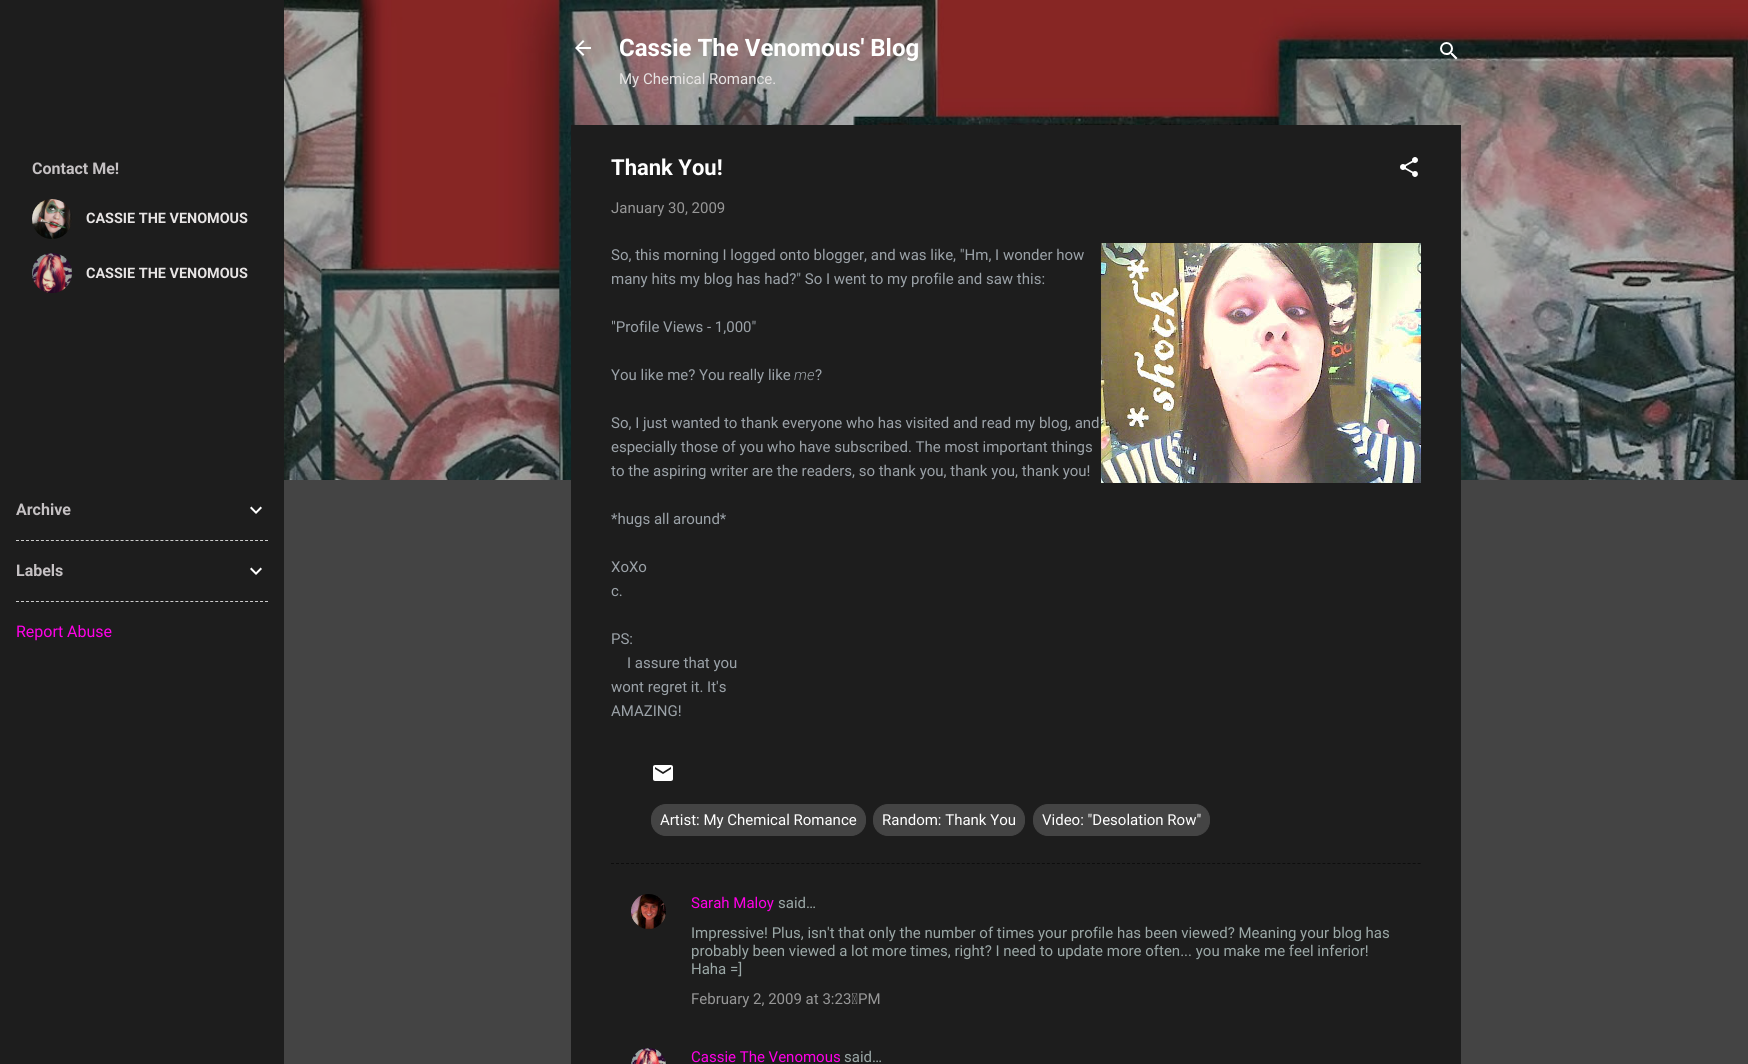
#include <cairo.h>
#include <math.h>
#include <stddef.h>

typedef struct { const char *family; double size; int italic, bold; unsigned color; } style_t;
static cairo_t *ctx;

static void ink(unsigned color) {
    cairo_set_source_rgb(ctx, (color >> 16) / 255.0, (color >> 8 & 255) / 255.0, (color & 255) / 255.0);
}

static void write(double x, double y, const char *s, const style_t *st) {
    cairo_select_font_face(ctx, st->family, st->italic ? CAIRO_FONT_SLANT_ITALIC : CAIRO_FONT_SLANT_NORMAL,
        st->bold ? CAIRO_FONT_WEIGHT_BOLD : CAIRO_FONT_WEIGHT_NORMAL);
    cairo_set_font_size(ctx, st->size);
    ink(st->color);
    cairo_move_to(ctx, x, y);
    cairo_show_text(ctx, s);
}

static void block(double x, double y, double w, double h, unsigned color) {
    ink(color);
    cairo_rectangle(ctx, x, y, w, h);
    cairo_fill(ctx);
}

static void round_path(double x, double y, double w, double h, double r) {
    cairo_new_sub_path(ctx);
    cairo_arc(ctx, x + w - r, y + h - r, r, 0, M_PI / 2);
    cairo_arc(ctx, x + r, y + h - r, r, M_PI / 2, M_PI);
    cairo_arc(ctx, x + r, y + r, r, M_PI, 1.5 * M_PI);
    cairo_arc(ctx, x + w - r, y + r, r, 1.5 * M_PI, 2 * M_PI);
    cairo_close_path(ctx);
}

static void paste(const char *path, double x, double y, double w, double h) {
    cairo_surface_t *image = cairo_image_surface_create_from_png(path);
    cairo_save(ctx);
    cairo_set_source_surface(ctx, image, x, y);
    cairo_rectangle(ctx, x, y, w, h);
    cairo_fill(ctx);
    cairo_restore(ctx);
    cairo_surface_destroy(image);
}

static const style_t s1 = {"Roboto", 16, 0, 1, 0xc5c1c3};
static const style_t s2 = {"Roboto", 14.4, 0, 1, 0xe7e4e4};
static const style_t s3 = {"Roboto", 16, 0, 0, 0xff00e7};
static const style_t s4 = {"Roboto", 24, 0, 1, 0xffffff};
static const style_t s5 = {"Roboto", 15, 0, 0, 0xe7e4e4};
static const style_t s6 = {"Roboto", 22, 0, 1, 0xffffff};
static const style_t s7 = {"Roboto", 15, 0, 0, 0x979797};
static const style_t s8 = {"Roboto", 15, 0, 0, 0x9ba2a8};
static const style_t s9 = {"Roboto Light", 15, 1, 0, 0x9ba2a8};
static const style_t s10 = {"Roboto", 15, 0, 0, 0xffffff};
static const style_t s11 = {"Roboto", 15, 0, 0, 0xff00e7};
static const style_t s12 = {"Roboto", 15, 0, 0, 0x9ba8a7};

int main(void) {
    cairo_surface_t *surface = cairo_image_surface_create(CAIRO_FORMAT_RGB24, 1748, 1064);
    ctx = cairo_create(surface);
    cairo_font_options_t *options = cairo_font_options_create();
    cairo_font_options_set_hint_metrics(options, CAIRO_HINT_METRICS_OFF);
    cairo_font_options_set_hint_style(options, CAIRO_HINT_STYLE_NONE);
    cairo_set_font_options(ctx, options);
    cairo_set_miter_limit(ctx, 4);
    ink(0x444444);
    cairo_paint(ctx);
    block(0, 0, 284, 1064, 0x1d1d1d);
    write(32, 174, "Contact Me!", &s1);
    paste("pic1.png", 32, 199, 40, 40);
    write(86, 223, "CASSIE THE VENOMOUS", &s2);
    paste("pic2.png", 32, 253, 40, 40);
    write(86, 278, "CASSIE THE VENOMOUS", &s2);
    write(16, 515, "Archive", &s1);
    paste("pic3.png", 250, 506, 12, 8);
    cairo_new_path(ctx);
    cairo_move_to(ctx, 16, 540.5);
    cairo_line_to(ctx, 268, 540.5);
    ink(0xcccccc);
    cairo_set_line_width(ctx, 1);
    cairo_set_dash(ctx, (double[]){3, 1.98}, 2, 0);
    cairo_stroke(ctx);
    write(16, 576, "Labels", &s1);
    paste("pic4.png", 250, 567, 12, 8);
    cairo_new_path(ctx);
    cairo_move_to(ctx, 16, 601.5);
    cairo_line_to(ctx, 268, 601.5);
    ink(0xcccccc);
    cairo_stroke(ctx);
    write(16, 637, "Report Abuse", &s3);
    paste("pic5.png", 284, 0, 1464, 480);
    paste("pic6.png", 575, 40, 16, 16);
    write(619, 56, "Cassie The Venomous' Blog", &s4);
    write(619, 84, "My Chemical Romance.", &s5);
    paste("pic7.png", 1440, 42, 18, 18);
    block(571, 125, 890, 939, 0x1d1d1d);
    write(611, 175, "Thank You!", &s6);
    paste("pic8.png", 1400, 157, 18, 20);
    write(611, 213, "January 30, 2009", &s7);
    write(611, 260, "So, this morning I logged onto blogger, and was like, \"Hm, I wonder how", &s8);
    paste("pic9.png", 1101, 243, 320, 240);
    write(611, 284, "many hits my blog has had?\" So I went to my profile and saw this:", &s8);
    write(611, 332, "\"Profile Views - 1,000\"", &s8);
    write(611, 380, "You like me? You really like", &s8);
    write(794, 380, "me", &s9);
    write(815, 380, "?", &s8);
    write(611, 428, "So, I just wanted to thank everyone who has visited and read my blog, and", &s8);
    write(611, 452, "especially those of you who have subscribed. The most important things", &s8);
    write(611, 476, "to the aspiring writer are the readers, so thank you, thank you, thank you!", &s8);
    write(611, 524, "*hugs all around*", &s8);
    write(611, 572, "XoXo", &s8);
    write(611, 596, "c.", &s8);
    write(611, 644, "PS:", &s8);
    write(627, 668, "I assure that you", &s8);
    write(611, 692, "wont regret it. It's", &s8);
    write(611, 716, "AMAZING!", &s8);
    paste("pic10.png", 653, 765, 20, 16);
    ink(0x444444);
    round_path(651.5, 804.5, 214, 31, 14.5);
    cairo_fill_preserve(ctx);
    cairo_set_dash(ctx, NULL, 0, 0);
    cairo_stroke(ctx);
    write(660, 825, "Artist: My Chemical Romance", &s10);
    ink(0x444444);
    round_path(873.5, 804.5, 151, 31, 14.5);
    cairo_fill_preserve(ctx);
    cairo_stroke(ctx);
    write(882, 825, "Random: Thank You", &s10);
    ink(0x444444);
    round_path(1033.5, 804.5, 176, 31, 14.5);
    cairo_fill_preserve(ctx);
    cairo_stroke(ctx);
    write(1042, 825, "Video: \"Desolation Row\"", &s10);
    cairo_new_path(ctx);
    cairo_move_to(ctx, 611, 863.5);
    cairo_line_to(ctx, 1421, 863.5);
    ink(0x0d0d0d);
    cairo_set_dash(ctx, (double[]){3, 2.01}, 2, 0);
    cairo_stroke(ctx);
    paste("pic11.png", 631, 894, 35, 35);
    write(691, 908, "Sarah Maloy", &s11);
    write(778, 908, "said…", &s12);
    write(691, 938, "Impressive! Plus, isn't that only the number of times your profile has been viewed? Meaning your blog has", &s12);
    write(691, 956, "probably been viewed a lot more times, right? I need to update more often... you make me feel inferior!", &s12);
    write(691, 974, "Haha =]", &s12);
    write(691, 1004, "February 2, 2009 at 3:23 PM", &s7);
    paste("pic12.png", 631, 1048, 35, 16);
    write(691, 1062, "Cassie The Venomous", &s11);
    write(844, 1062, "said…", &s12);
    cairo_surface_write_to_png(surface, "screenshot.png");
    cairo_font_options_destroy(options);
    cairo_destroy(ctx);
    cairo_surface_destroy(surface);
    return 0;
}
